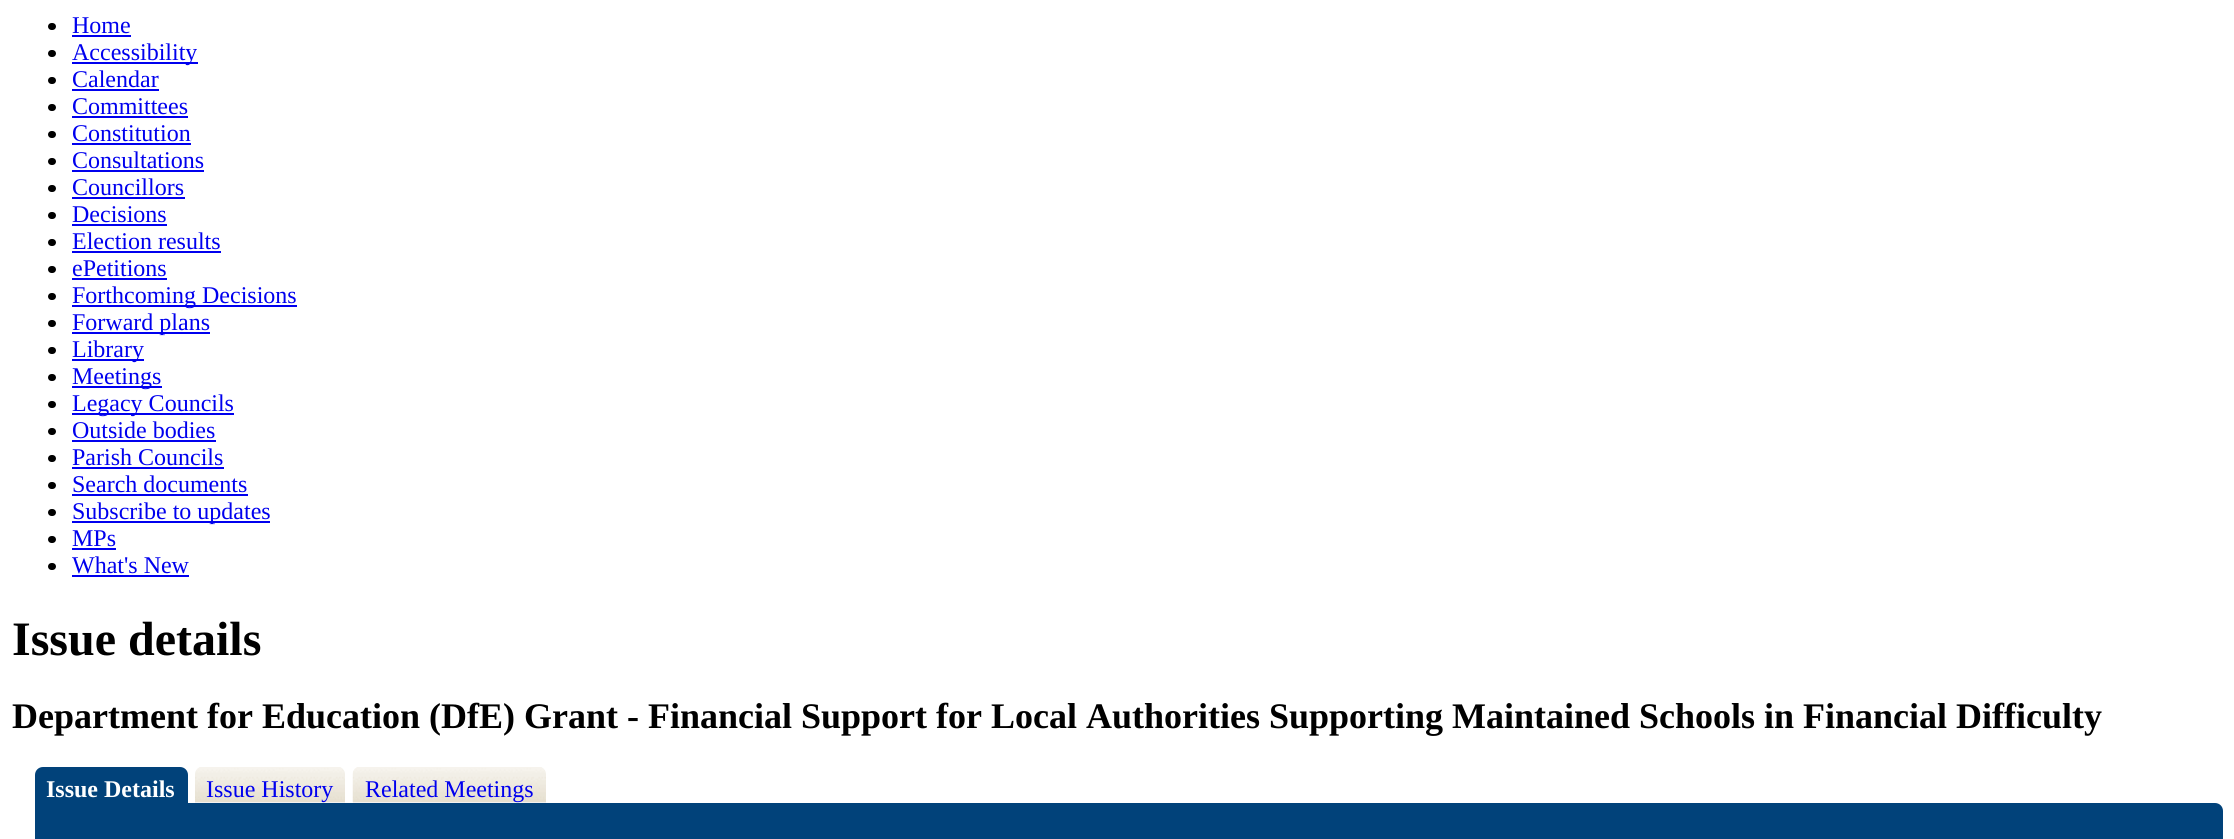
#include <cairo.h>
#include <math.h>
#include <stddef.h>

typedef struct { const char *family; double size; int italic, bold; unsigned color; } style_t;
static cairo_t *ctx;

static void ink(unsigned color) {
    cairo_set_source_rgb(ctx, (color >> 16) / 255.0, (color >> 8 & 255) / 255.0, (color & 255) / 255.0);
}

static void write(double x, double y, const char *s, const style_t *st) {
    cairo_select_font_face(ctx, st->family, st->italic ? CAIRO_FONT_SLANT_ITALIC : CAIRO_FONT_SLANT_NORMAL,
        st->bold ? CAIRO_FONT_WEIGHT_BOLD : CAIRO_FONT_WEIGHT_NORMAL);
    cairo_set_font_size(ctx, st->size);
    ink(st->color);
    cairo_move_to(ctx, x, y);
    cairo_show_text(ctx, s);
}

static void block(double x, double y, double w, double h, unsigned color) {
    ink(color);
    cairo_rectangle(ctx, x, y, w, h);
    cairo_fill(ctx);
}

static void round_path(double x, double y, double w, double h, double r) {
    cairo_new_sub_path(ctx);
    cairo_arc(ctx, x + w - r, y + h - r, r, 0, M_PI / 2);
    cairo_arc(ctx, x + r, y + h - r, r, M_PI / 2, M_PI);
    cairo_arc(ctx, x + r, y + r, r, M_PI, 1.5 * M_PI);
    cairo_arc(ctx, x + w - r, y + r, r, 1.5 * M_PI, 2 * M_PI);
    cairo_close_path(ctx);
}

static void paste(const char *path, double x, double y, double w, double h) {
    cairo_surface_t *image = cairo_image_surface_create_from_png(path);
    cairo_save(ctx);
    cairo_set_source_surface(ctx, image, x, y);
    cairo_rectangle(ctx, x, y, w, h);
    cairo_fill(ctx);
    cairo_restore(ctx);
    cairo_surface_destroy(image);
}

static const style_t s1 = {"Liberation Serif", 24, 0, 0, 0x0000ee};
static const style_t s2 = {"Liberation Serif", 48, 0, 1, 0x000000};
static const style_t s3 = {"Liberation Serif", 36, 0, 1, 0x000000};
static const style_t s4 = {"Liberation Serif", 24, 0, 1, 0xffffff};

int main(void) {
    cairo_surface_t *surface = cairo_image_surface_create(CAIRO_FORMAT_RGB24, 2234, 839);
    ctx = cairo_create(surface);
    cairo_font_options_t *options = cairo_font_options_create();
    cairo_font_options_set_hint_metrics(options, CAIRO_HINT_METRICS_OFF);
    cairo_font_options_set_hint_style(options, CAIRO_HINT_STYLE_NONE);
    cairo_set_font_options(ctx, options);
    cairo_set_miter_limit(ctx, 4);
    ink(0xffffff);
    cairo_paint(ctx);
    ink(0x000000);
    round_path(48, 23, 8, 7, 3.5);
    cairo_fill(ctx);
    write(72, 33, "Home", &s1);
    block(72, 35, 59, 2, 0x0000ee);
    ink(0x000000);
    round_path(48, 50, 8, 7, 3.5);
    cairo_fill(ctx);
    block(72, 62, 126, 2, 0x0000ee);
    write(72, 60, "Accessibility", &s1);
    ink(0x000000);
    round_path(48, 77, 8, 7, 3.5);
    cairo_fill(ctx);
    write(72, 87, "Calendar", &s1);
    block(72, 89, 87, 2, 0x0000ee);
    ink(0x000000);
    round_path(48, 104, 8, 7, 3.5);
    cairo_fill(ctx);
    write(72, 114, "Committees", &s1);
    block(72, 116, 116, 2, 0x0000ee);
    ink(0x000000);
    round_path(48, 131, 8, 7, 3.5);
    cairo_fill(ctx);
    write(72, 141, "Constitution", &s1);
    block(72, 143, 119, 2, 0x0000ee);
    ink(0x000000);
    round_path(48, 158, 8, 7, 3.5);
    cairo_fill(ctx);
    write(72, 168, "Consultations", &s1);
    block(72, 170, 132, 2, 0x0000ee);
    ink(0x000000);
    round_path(48, 185, 8, 7, 3.5);
    cairo_fill(ctx);
    write(72, 195, "Councillors", &s1);
    block(72, 197, 113, 2, 0x0000ee);
    ink(0x000000);
    round_path(48, 212, 8, 7, 3.5);
    cairo_fill(ctx);
    write(72, 222, "Decisions", &s1);
    block(72, 224, 95, 2, 0x0000ee);
    ink(0x000000);
    round_path(48, 239, 8, 7, 3.5);
    cairo_fill(ctx);
    write(72, 249, "Election results", &s1);
    block(72, 251, 149, 2, 0x0000ee);
    ink(0x000000);
    round_path(48, 266, 8, 7, 3.5);
    cairo_fill(ctx);
    write(72, 276, "ePetitions", &s1);
    block(72, 278, 95, 2, 0x0000ee);
    ink(0x000000);
    round_path(48, 293, 8, 7, 3.5);
    cairo_fill(ctx);
    block(72, 305, 225, 2, 0x0000ee);
    write(72, 303, "Forthcoming Decisions", &s1);
    ink(0x000000);
    round_path(48, 320, 8, 7, 3.5);
    cairo_fill(ctx);
    block(72, 332, 138, 2, 0x0000ee);
    write(72, 330, "Forward plans", &s1);
    ink(0x000000);
    round_path(48, 347, 8, 7, 3.5);
    cairo_fill(ctx);
    block(72, 359, 72, 2, 0x0000ee);
    write(72, 357, "Library", &s1);
    ink(0x000000);
    round_path(48, 374, 8, 7, 3.5);
    cairo_fill(ctx);
    block(72, 386, 90, 2, 0x0000ee);
    write(72, 384, "Meetings", &s1);
    ink(0x000000);
    round_path(48, 401, 8, 7, 3.5);
    cairo_fill(ctx);
    block(72, 413, 162, 2, 0x0000ee);
    write(72, 411, "Legacy Councils", &s1);
    ink(0x000000);
    round_path(48, 428, 8, 7, 3.5);
    cairo_fill(ctx);
    write(72, 438, "Outside bodies", &s1);
    block(72, 440, 144, 2, 0x0000ee);
    ink(0x000000);
    round_path(48, 455, 8, 7, 3.5);
    cairo_fill(ctx);
    write(72, 465, "Parish Councils", &s1);
    block(72, 467, 152, 2, 0x0000ee);
    ink(0x000000);
    round_path(48, 482, 8, 7, 3.5);
    cairo_fill(ctx);
    write(72, 492, "Search documents", &s1);
    block(72, 494, 176, 2, 0x0000ee);
    ink(0x000000);
    round_path(48, 509, 8, 7, 3.5);
    cairo_fill(ctx);
    block(72, 521, 198, 2, 0x0000ee);
    write(72, 519, "Subscribe to updates", &s1);
    ink(0x000000);
    round_path(48, 536, 8, 7, 3.5);
    cairo_fill(ctx);
    write(72, 546, "MPs", &s1);
    block(72, 548, 44, 2, 0x0000ee);
    ink(0x000000);
    round_path(48, 563, 8, 7, 3.5);
    cairo_fill(ctx);
    write(72, 573, "What's New", &s1);
    block(72, 575, 117, 2, 0x0000ee);
    write(12, 655, "Issue details", &s2);
    write(12, 728, "Department for Education (DfE) Grant - Financial Support for Local Authorities Supporting Maintained Schools in Financial Difficulty", &s3);
    ink(0x01427a);
    cairo_new_path(ctx);
    cairo_move_to(ctx, 43, 767);
    cairo_line_to(ctx, 180, 767);
    cairo_curve_to(ctx, 184.5, 767, 188, 770.5, 188, 775);
    cairo_line_to(ctx, 188, 803);
    cairo_line_to(ctx, 35, 803);
    cairo_line_to(ctx, 35, 775);
    cairo_curve_to(ctx, 35, 770.5, 38.5, 767, 43, 767);
    cairo_close_path(ctx);
    cairo_fill(ctx);
    write(46, 797, "Issue Details", &s4);
    ink(0xf3f3f3);
    cairo_new_path(ctx);
    cairo_move_to(ctx, 203, 767);
    cairo_line_to(ctx, 337, 767);
    cairo_curve_to(ctx, 341.5, 767, 345, 770.5, 345, 775);
    cairo_line_to(ctx, 345, 803);
    cairo_line_to(ctx, 195, 803);
    cairo_line_to(ctx, 195, 775);
    cairo_curve_to(ctx, 195, 770.5, 198.5, 767, 203, 767);
    cairo_close_path(ctx);
    cairo_fill(ctx);
    paste("pic1.png", 195, 767, 150, 36);
    write(206, 797, "Issue History", &s1);
    ink(0xf3f3f3);
    cairo_new_path(ctx);
    cairo_move_to(ctx, 361, 767);
    cairo_line_to(ctx, 538, 767);
    cairo_curve_to(ctx, 542.5, 767, 546, 770.5, 546, 775);
    cairo_line_to(ctx, 546, 803);
    cairo_line_to(ctx, 353, 803);
    cairo_line_to(ctx, 353, 775);
    cairo_curve_to(ctx, 353, 770.5, 356.5, 767, 361, 767);
    cairo_close_path(ctx);
    cairo_fill(ctx);
    paste("pic2.png", 352, 767, 194, 36);
    write(365, 797, "Related Meetings", &s1);
    ink(0x01427a);
    cairo_new_path(ctx);
    cairo_move_to(ctx, 35, 803);
    cairo_line_to(ctx, 2215, 803);
    cairo_curve_to(ctx, 2219.5, 803, 2223, 806.5, 2223, 811);
    cairo_line_to(ctx, 2223, 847);
    cairo_line_to(ctx, 35, 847);
    cairo_close_path(ctx);
    cairo_fill(ctx);
    cairo_surface_write_to_png(surface, "screenshot.png");
    cairo_font_options_destroy(options);
    cairo_destroy(ctx);
    cairo_surface_destroy(surface);
    return 0;
}
